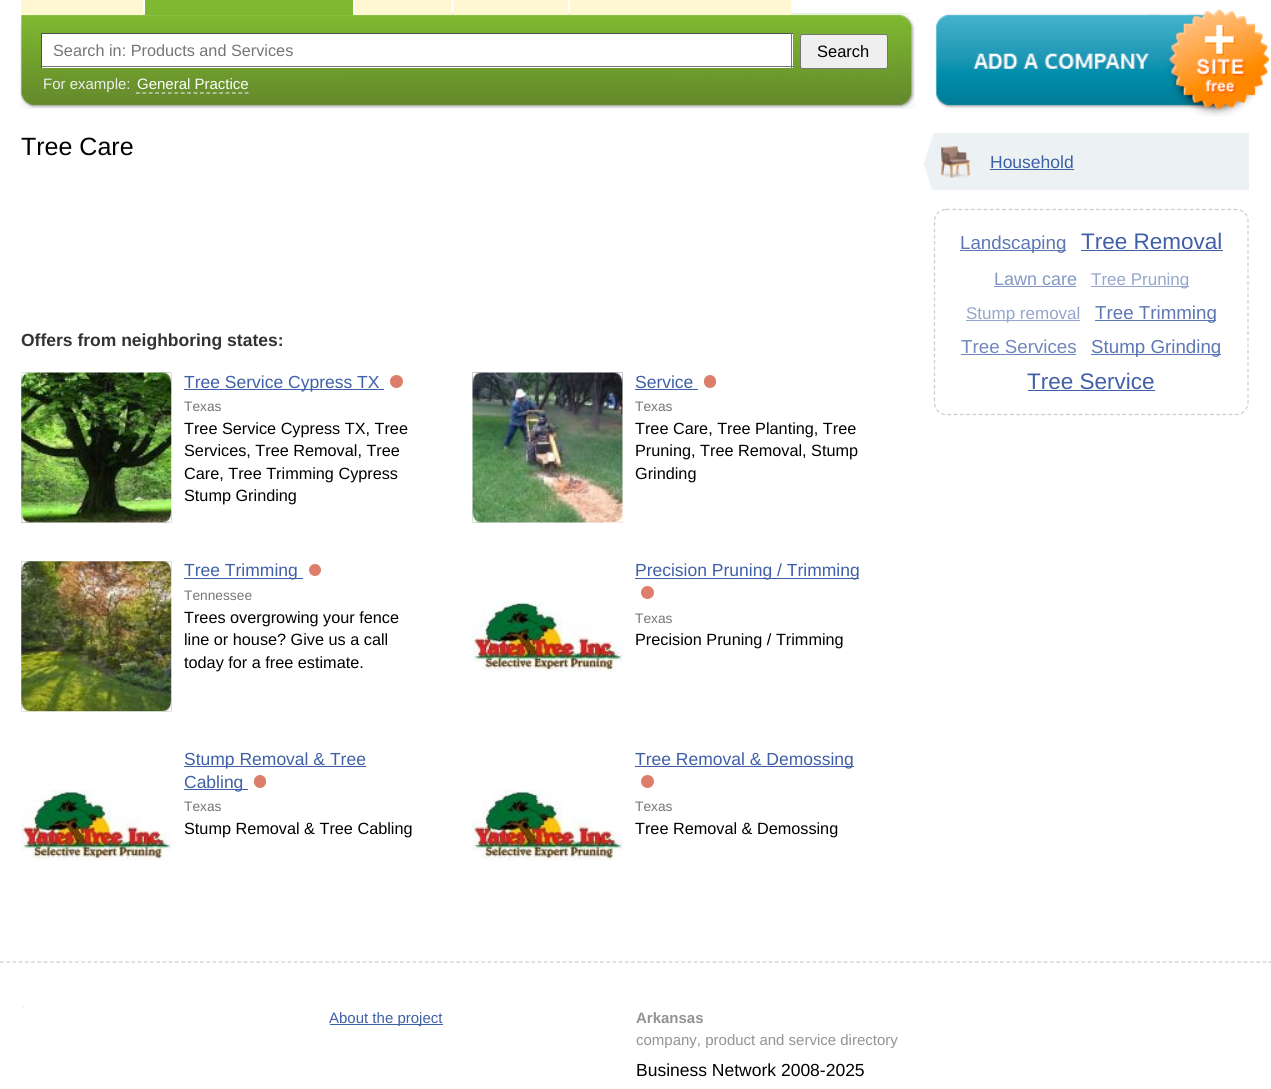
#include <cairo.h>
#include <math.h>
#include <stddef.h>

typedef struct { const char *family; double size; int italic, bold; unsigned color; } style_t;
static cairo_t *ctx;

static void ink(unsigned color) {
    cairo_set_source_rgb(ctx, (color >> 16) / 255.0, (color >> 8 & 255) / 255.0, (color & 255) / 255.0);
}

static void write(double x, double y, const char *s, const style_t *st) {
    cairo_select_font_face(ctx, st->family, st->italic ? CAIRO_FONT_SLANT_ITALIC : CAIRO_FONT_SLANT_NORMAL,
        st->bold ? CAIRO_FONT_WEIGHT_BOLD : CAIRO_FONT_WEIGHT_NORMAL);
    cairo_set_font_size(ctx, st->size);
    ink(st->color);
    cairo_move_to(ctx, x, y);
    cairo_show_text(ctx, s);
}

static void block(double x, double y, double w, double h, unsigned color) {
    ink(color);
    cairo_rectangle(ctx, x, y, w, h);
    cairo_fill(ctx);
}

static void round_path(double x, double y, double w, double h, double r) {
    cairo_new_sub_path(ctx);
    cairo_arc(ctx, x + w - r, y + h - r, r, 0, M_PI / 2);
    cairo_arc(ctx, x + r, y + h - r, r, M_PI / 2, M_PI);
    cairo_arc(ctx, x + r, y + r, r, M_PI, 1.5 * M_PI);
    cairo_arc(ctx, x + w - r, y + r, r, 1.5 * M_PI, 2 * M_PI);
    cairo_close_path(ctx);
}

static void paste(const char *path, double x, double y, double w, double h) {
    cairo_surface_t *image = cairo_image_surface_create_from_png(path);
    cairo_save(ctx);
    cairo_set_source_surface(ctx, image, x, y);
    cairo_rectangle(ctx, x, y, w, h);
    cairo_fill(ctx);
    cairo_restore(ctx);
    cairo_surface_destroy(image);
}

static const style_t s1 = {"Liberation Sans", 16.25, 0, 0, 0x757575};
static const style_t s2 = {"Liberation Sans", 16.5, 0, 0, 0x000000};
static const style_t s3 = {"Liberation Sans", 15, 0, 0, 0xeeeeee};
static const style_t s4 = {"Liberation Sans", 15, 0, 0, 0xffffff};
static const style_t s5 = {"Liberation Sans", 25, 0, 0, 0x000000};
static const style_t s6 = {"Liberation Sans", 17.5, 0, 1, 0x333333};
static const style_t s7 = {"Liberation Sans", 17.5, 0, 0, 0x3f5fa6};
static const style_t s8 = {"Liberation Sans", 13.75, 0, 0, 0x757575};
static const style_t s9 = {"Liberation Sans", 16.25, 0, 0, 0x000000};
static const style_t s10 = {"Liberation Sans", 18.75, 0, 0, 0x5c77b3};
static const style_t s11 = {"Liberation Sans", 22.5, 0, 0, 0x3f5fa6};
static const style_t s12 = {"Liberation Sans", 18, 0, 0, 0x8297c5};
static const style_t s13 = {"Liberation Sans", 17, 0, 0, 0x95a7ce};
static const style_t s14 = {"Liberation Sans", 18.75, 0, 0, 0x6f87bc};
static const style_t s15 = {"Liberation Sans", 15, 0, 0, 0x3f5fa6};
static const style_t s16 = {"Liberation Sans", 15, 0, 1, 0x939393};
static const style_t s17 = {"Liberation Sans", 15, 0, 0, 0x939393};
static const style_t s18 = {"Liberation Sans", 17.5, 0, 0, 0x000000};

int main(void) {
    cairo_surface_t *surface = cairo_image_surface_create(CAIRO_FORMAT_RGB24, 1271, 1089);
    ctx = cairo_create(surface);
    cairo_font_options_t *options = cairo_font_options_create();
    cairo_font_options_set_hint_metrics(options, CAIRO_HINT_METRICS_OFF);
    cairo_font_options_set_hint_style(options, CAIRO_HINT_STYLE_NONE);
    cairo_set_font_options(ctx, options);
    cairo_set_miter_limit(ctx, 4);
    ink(0xffffff);
    cairo_paint(ctx);
    paste("pic1.png", 21, 13, 891, 96);
    paste("pic2.png", 20, 13, 15, 96);
    block(21, 0, 122, 15, 0xfff7d1);
    block(145, 0, 208, 15, 0x7eb931);
    block(355, 0, 96, 15, 0xfff7d1);
    cairo_set_source_rgba(ctx, 1, 0.969, 0.827, 0.25);
    cairo_rectangle(ctx, 451, 0, 1, 15);
    cairo_fill(ctx);
    block(454, 0, 114, 15, 0xfff7d1);
    cairo_set_source_rgba(ctx, 1, 0.969, 0.827, 0.25);
    cairo_rectangle(ctx, 453, 0, 1, 15);
    cairo_fill(ctx);
    block(570, 0, 221, 15, 0xfff7d1);
    cairo_set_source_rgba(ctx, 1, 0.969, 0.827, 0.25);
    cairo_rectangle(ctx, 791, 0, 1, 15);
    cairo_fill(ctx);
    block(42, 34, 751, 34, 0xffffff);
    block(41, 33, 752, 1, 0x4f4f4f);
    block(791, 33, 1, 35, 0x767676);
    block(41, 66, 752, 1, 0x767676);
    block(41, 33, 1, 35, 0x4f4f4f);
    write(53, 56, "Search in: Products and Services", &s1);
    ink(0xefefef);
    round_path(800.5, 34.5, 87, 34, 2);
    cairo_fill_preserve(ctx);
    ink(0x767676);
    cairo_set_line_width(ctx, 1);
    cairo_stroke(ctx);
    write(817, 57, "Search", &s2);
    paste("pic3.png", 900, 13, 15, 96);
    write(43, 89, "For example:", &s3);
    write(137, 89, "General Practice", &s4);
    cairo_new_path(ctx);
    cairo_move_to(ctx, 136, 93);
    cairo_line_to(ctx, 249, 93);
    ink(0xdddddd);
    cairo_set_line_width(ctx, 1.2);
    cairo_set_dash(ctx, (double[]){3.75, 2.65}, 2, 0);
    cairo_stroke(ctx);
    paste("pic4.png", 935, 8, 336, 109);
    write(21, 155, "Tree Care", &s5);
    write(21, 346, "Offers from neighboring states:", &s6);
    paste("pic5.png", 21, 372, 151, 151);
    paste("pic6.png", 21, 372, 151, 151);
    block(184, 389, 200, 1, 0x3f5fa6);
    write(184, 388, "Tree Service Cypress TX", &s7);
    ink(0xdd7e6b);
    cairo_new_path(ctx);
    cairo_arc(ctx, 396.5, 381.5, 6.5, 0, 2 * M_PI);
    cairo_fill(ctx);
    write(184, 411, "Texas", &s8);
    write(184, 434, "Tree Service Cypress TX, Tree", &s9);
    write(184, 456, "Services, Tree Removal, Tree", &s9);
    write(184, 479, "Care, Tree Trimming Cypress", &s9);
    write(184, 501, "Stump Grinding", &s9);
    paste("pic7.png", 472, 372, 151, 151);
    paste("pic8.png", 472, 372, 151, 151);
    write(635, 388, "Service", &s7);
    block(635, 389, 63, 1, 0x3f5fa6);
    ink(0xdd7e6b);
    round_path(704, 375, 12, 13, 6);
    cairo_fill(ctx);
    write(635, 411, "Texas", &s8);
    write(635, 434, "Tree Care, Tree Planting, Tree", &s9);
    write(635, 456, "Pruning, Tree Removal, Stump", &s9);
    write(635, 479, "Grinding", &s9);
    paste("pic9.png", 21, 561, 151, 151);
    paste("pic10.png", 21, 561, 151, 151);
    block(184, 578, 119, 1, 0x3f5fa6);
    write(184, 576, "Tree Trimming", &s7);
    ink(0xdd7e6b);
    cairo_new_path(ctx);
    cairo_arc(ctx, 315, 570, 6, 0, 2 * M_PI);
    cairo_fill(ctx);
    write(184, 600, "Tennessee", &s8);
    write(184, 623, "Trees overgrowing your fence", &s9);
    write(184, 645, "line or house? Give us a call", &s9);
    write(184, 668, "today for a free estimate.", &s9);
    block(635, 578, 224, 1, 0x3f5fa6);
    write(635, 576, "Precision Pruning / Trimming", &s7);
    paste("pic11.png", 472, 601, 151, 71);
    ink(0xdd7e6b);
    cairo_arc(ctx, 647.5, 592.5, 6.5, 0, 2 * M_PI);
    cairo_fill(ctx);
    write(635, 623, "Texas", &s8);
    write(635, 645, "Precision Pruning / Trimming", &s9);
    block(184, 766, 182, 1, 0x3f5fa6);
    write(184, 765, "Stump Removal & Tree", &s7);
    block(184, 789, 64, 1, 0x3f5fa6);
    write(184, 788, "Cabling", &s7);
    paste("pic12.png", 21, 789, 151, 72);
    ink(0xdd7e6b);
    round_path(254, 775, 12, 13, 6);
    cairo_fill(ctx);
    write(184, 811, "Texas", &s8);
    write(184, 834, "Stump Removal & Tree Cabling", &s9);
    block(635, 766, 219, 1, 0x3f5fa6);
    write(635, 765, "Tree Removal & Demossing", &s7);
    paste("pic13.png", 472, 789, 151, 72);
    ink(0xdd7e6b);
    cairo_arc(ctx, 647.5, 781.5, 6.5, 0, 2 * M_PI);
    cairo_fill(ctx);
    write(635, 811, "Texas", &s8);
    write(635, 834, "Tree Removal & Demossing", &s9);
    block(934, 133, 315, 57, 0xecf2f4);
    paste("pic14.png", 923, 133, 11, 57);
    paste("pic15.png", 941, 146, 30, 32);
    write(990, 168, "Household", &s7);
    block(990, 169, 84, 1, 0x3f5fa6);
    cairo_new_path(ctx);
    cairo_move_to(ctx, 946, 209.5);
    cairo_line_to(ctx, 1236, 209.5);
    cairo_curve_to(ctx, 1243, 209.5, 1248, 214.5, 1248, 221);
    cairo_line_to(ctx, 1248, 402.5);
    cairo_curve_to(ctx, 1248, 409, 1243, 414.5, 1236, 414.5);
    cairo_line_to(ctx, 946, 414.5);
    cairo_curve_to(ctx, 939.5, 414.5, 934.5, 409, 934.5, 402.5);
    cairo_line_to(ctx, 934.5, 221);
    cairo_curve_to(ctx, 934.5, 214.5, 939.5, 209.5, 946, 209.5);
    cairo_close_path(ctx);
    ink(0xcccccc);
    cairo_set_dash(ctx, (double[]){3.75, 2.5}, 2, 0);
    cairo_stroke(ctx);
    block(960, 250, 106, 1, 0x5c77b3);
    write(960, 249, "Landscaping", &s10);
    write(1081, 249, "Tree Removal", &s11);
    block(1081, 250, 142, 1, 0x3f5fa6);
    write(994, 285, "Lawn care", &s12);
    block(994, 286, 82, 1, 0x8297c5);
    block(1091, 286, 98, 1, 0x95a7ce);
    write(1091, 285, "Tree Pruning", &s13);
    block(966, 320, 114, 1, 0x95a7ce);
    write(966, 319, "Stump removal", &s13);
    block(1095, 320, 121, 1, 0x5c77b3);
    write(1095, 319, "Tree Trimming", &s10);
    write(961, 353, "Tree Services", &s14);
    block(961, 354, 115, 1, 0x6f87bc);
    block(1091, 354, 130, 1, 0x5c77b3);
    write(1091, 353, "Stump Grinding", &s10);
    write(1027, 389, "Tree Service", &s11);
    block(1028, 390, 127, 1, 0x3f5fa6);
    cairo_new_path(ctx);
    cairo_move_to(ctx, 0, 962);
    cairo_line_to(ctx, 1271, 962);
    ink(0xcccccc);
    cairo_stroke(ctx);
    paste("pic16.png", 22, 1006, 2, 2);
    block(330, 1024, 113, 1, 0x3f5fa6);
    write(329, 1023, "About the project", &s15);
    write(636, 1023, "Arkansas", &s16);
    write(636, 1045, "company, product and service directory", &s17);
    write(636, 1076, "Business Network 2008-2025", &s18);
    cairo_surface_write_to_png(surface, "screenshot.png");
    cairo_font_options_destroy(options);
    cairo_destroy(ctx);
    cairo_surface_destroy(surface);
    return 0;
}
